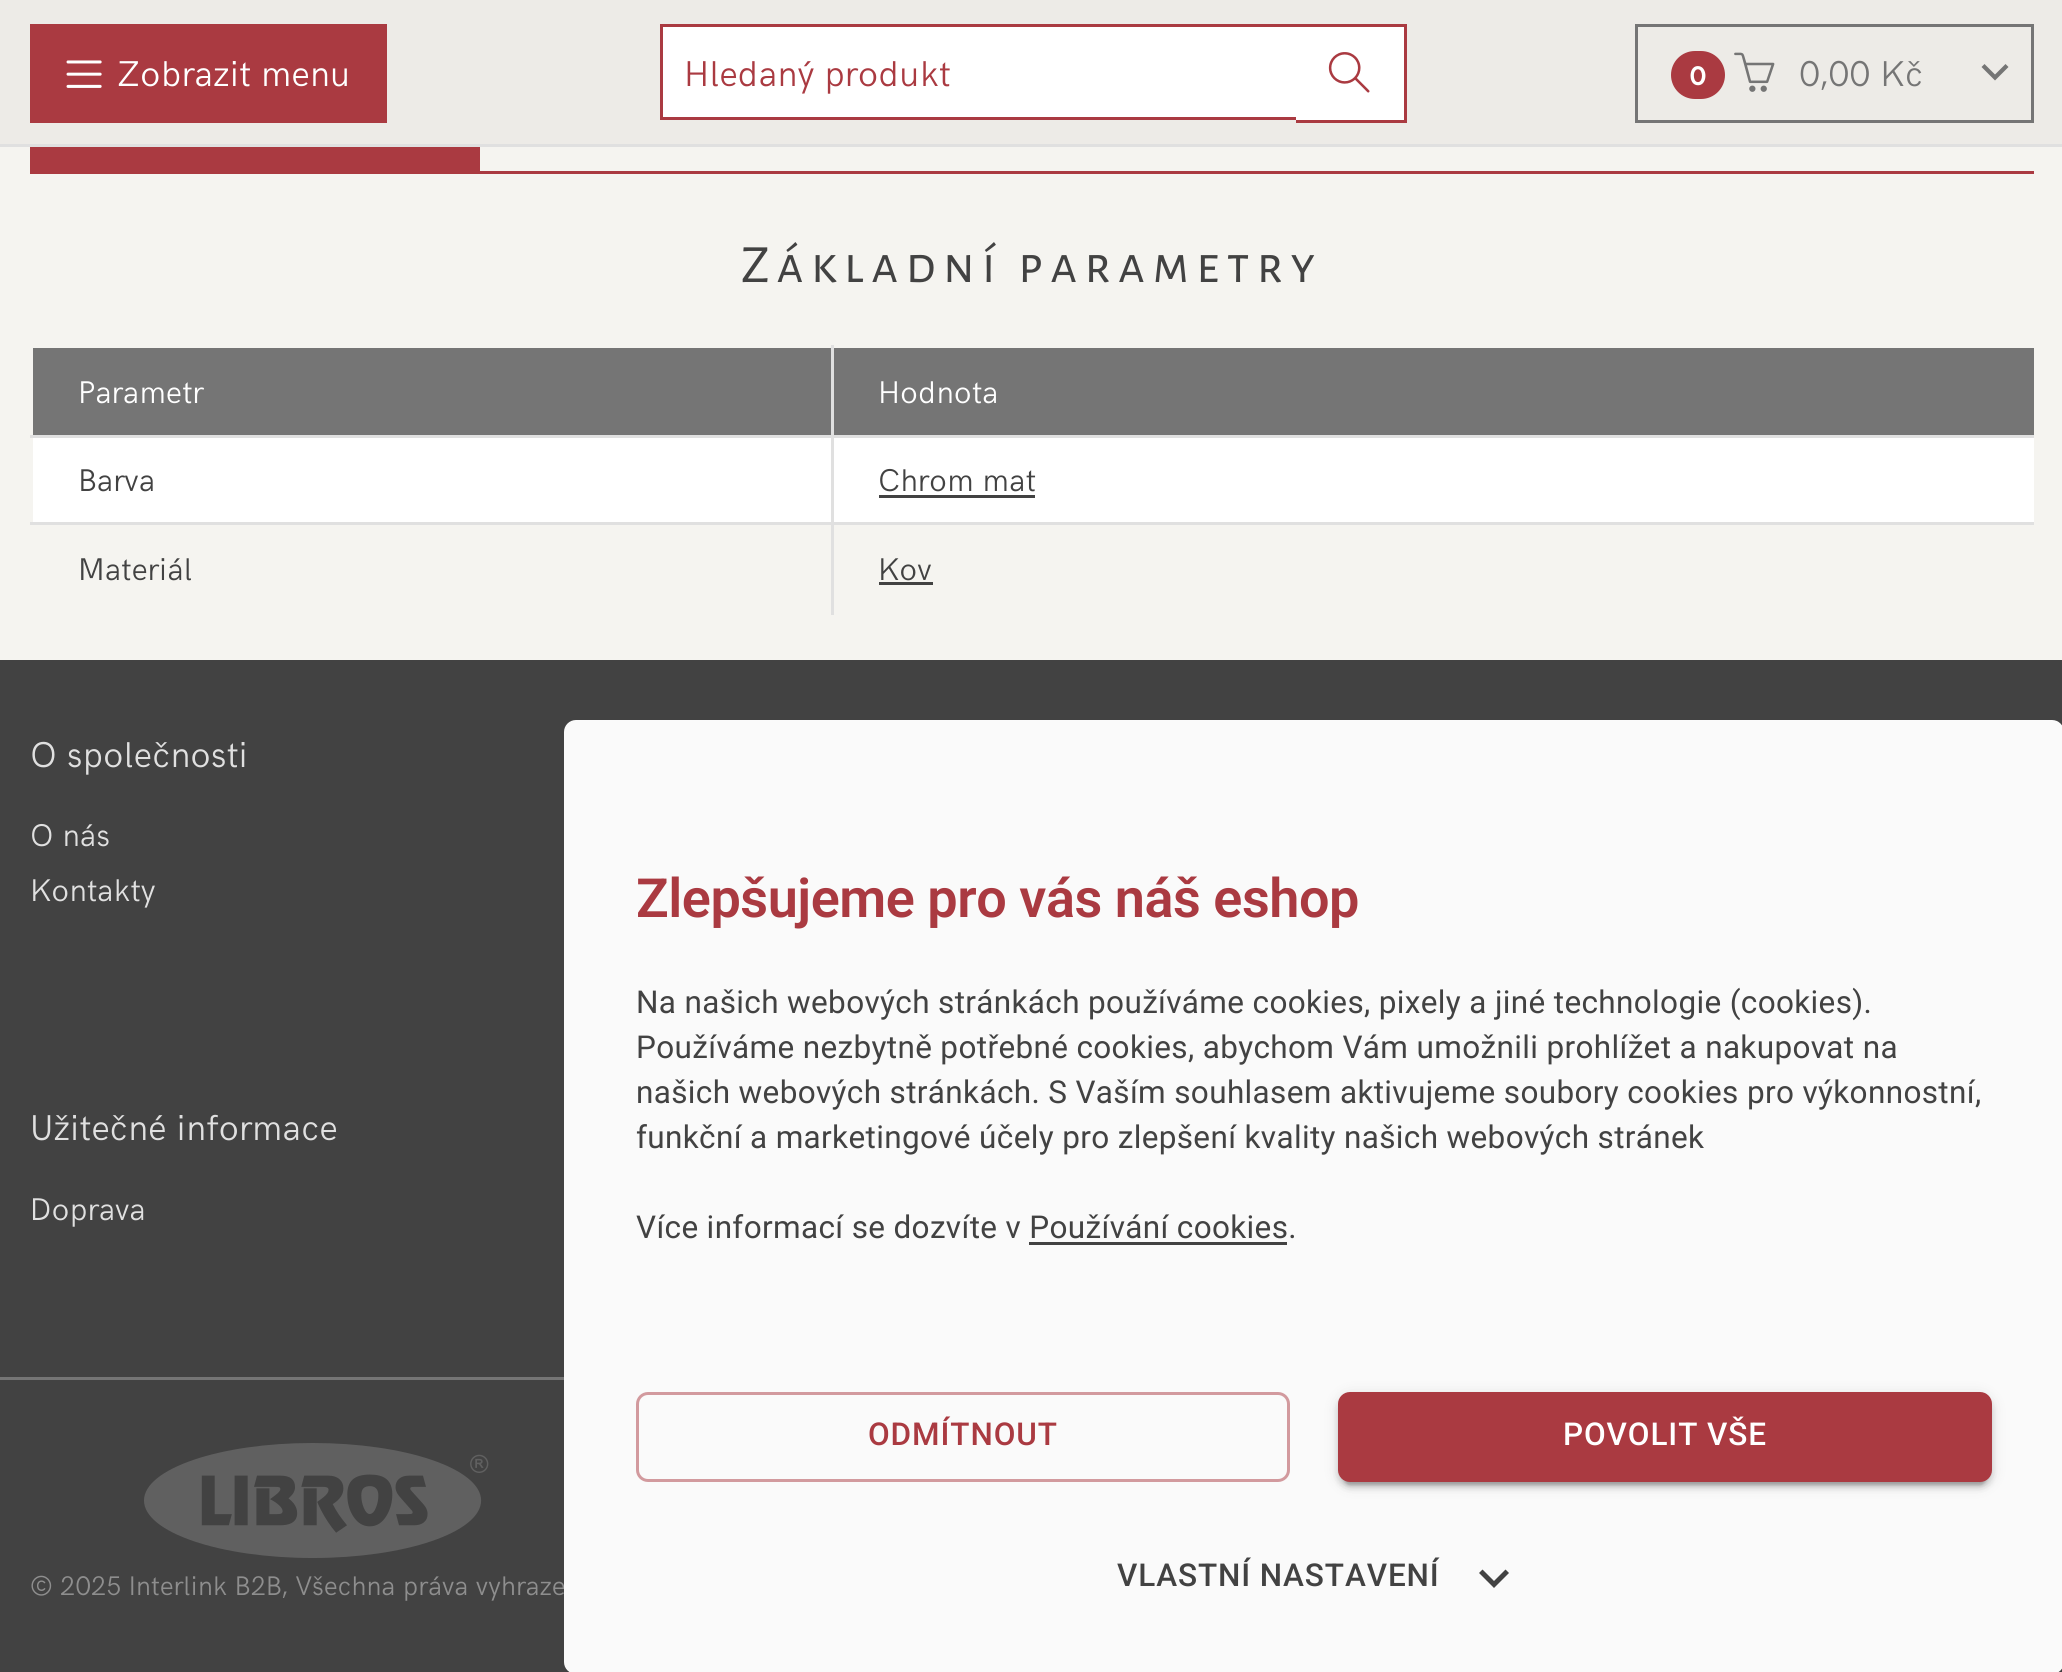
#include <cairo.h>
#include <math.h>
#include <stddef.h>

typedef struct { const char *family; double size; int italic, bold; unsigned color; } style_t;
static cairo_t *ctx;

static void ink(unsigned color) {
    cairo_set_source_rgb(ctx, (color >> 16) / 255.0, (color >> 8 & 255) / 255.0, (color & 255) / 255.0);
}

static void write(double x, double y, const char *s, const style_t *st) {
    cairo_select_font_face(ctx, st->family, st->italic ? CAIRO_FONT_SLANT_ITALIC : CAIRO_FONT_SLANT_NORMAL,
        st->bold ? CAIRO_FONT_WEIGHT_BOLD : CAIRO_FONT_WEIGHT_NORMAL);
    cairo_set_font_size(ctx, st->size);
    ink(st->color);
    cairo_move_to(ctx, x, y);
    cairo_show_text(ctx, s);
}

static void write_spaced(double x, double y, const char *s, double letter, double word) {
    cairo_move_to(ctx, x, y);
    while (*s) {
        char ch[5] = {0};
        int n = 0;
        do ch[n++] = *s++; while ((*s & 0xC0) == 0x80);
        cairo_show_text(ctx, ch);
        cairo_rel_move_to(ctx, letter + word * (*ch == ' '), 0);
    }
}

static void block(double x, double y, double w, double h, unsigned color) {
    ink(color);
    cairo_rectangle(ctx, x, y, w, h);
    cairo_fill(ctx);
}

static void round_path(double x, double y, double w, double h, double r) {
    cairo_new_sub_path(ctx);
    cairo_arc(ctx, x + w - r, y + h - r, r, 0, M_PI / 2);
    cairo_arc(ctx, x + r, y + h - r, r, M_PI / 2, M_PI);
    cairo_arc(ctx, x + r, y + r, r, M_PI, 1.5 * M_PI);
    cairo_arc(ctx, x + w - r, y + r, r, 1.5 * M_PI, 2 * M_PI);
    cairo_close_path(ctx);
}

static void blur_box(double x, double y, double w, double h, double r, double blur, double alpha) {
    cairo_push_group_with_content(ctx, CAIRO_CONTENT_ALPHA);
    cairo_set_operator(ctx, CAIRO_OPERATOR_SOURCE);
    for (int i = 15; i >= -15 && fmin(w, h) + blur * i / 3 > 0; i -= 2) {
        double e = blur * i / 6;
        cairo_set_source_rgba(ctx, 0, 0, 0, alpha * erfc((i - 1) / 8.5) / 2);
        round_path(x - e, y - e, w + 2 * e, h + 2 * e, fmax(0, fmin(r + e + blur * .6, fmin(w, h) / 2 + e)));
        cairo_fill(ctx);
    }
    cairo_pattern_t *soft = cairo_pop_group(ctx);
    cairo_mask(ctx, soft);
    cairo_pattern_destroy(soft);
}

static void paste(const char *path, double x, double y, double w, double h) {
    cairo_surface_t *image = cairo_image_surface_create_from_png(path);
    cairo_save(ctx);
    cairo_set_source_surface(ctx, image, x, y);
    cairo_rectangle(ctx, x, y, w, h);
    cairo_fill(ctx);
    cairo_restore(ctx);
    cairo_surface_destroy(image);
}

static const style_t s1 = {"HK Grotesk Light", 36, 0, 0, 0xffffff};
static const style_t s2 = {"HK Grotesk Light", 36, 0, 0, 0xaa3a41};
static const style_t s3 = {"HK Grotesk", 27, 0, 1, 0xffffff};
static const style_t s4 = {"HK Grotesk Light", 36, 0, 0, 0x757575};
static const style_t s5 = {"HK Grotesk Light", 31.5, 0, 0, 0xffffff};
static const style_t s6 = {"HK Grotesk Light", 31.5, 0, 0, 0x424242};
static const style_t s7 = {"HK Grotesk Light", 36, 0, 0, 0xe0e0e0};
static const style_t s8 = {"HK Grotesk Light", 31.5, 0, 0, 0xe0e0e0};
static const style_t s9 = {"HK Grotesk Light", 27, 0, 0, 0x8e8e8e};

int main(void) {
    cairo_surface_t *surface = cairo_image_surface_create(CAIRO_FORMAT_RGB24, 2062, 1672);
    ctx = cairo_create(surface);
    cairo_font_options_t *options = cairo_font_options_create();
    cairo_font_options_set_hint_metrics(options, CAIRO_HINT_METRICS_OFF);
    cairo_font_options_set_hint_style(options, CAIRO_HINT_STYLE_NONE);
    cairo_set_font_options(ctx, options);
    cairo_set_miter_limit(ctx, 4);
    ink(0xf5f4f0);
    cairo_paint(ctx);
    block(0, 0, 2062, 144, 0xedebe7);
    block(0, 144, 2062, 3, 0xe0e0e0);
    block(30, 24, 357, 99, 0xaa3a41);
    paste("pic1.png", 66, 60, 36, 28);
    write(117, 86, "Zobrazit menu", &s1);
    block(663, 27, 633, 90, 0xffffff);
    block(660, 24, 747, 3, 0xaa3a41);
    block(660, 117, 636, 3, 0xaa3a41);
    block(660, 24, 3, 96, 0xaa3a41);
    write(684, 86, "Hledaný produkt", &s2);
    block(1296, 27, 108, 93, 0xffffff);
    block(1404, 24, 3, 99, 0xaa3a41);
    block(1296, 120, 111, 3, 0xaa3a41);
    paste("pic2.png", 1328, 52, 42, 41);
    cairo_rectangle(ctx, 1636.5, 25.5, 396, 96);
    ink(0x757575);
    cairo_set_line_width(ctx, 3);
    cairo_stroke(ctx);
    ink(0xaa3a41);
    round_path(1672.5, 52.5, 51, 45, 22.5);
    cairo_fill_preserve(ctx);
    cairo_stroke(ctx);
    write(1690, 85, "0", &s3);
    paste("pic3.png", 1734, 52, 41, 40);
    write(1799, 86, "0,00 Kč", &s4);
    cairo_new_path(ctx);
    cairo_move_to(ctx, 1984.5, 64);
    cairo_line_to(ctx, 1995, 74.5);
    cairo_line_to(ctx, 2005.5, 64);
    cairo_line_to(ctx, 2008.5, 67);
    cairo_line_to(ctx, 1995, 80.5);
    cairo_line_to(ctx, 1981.5, 67);
    cairo_close_path(ctx);
    cairo_fill(ctx);
    block(30, 171, 2004, 3, 0xaa3a41);
    block(30, 147, 450, 24, 0xaa3a41);
    cairo_select_font_face(ctx, "Alegreya Sans SC", CAIRO_FONT_SLANT_NORMAL, CAIRO_FONT_WEIGHT_NORMAL);
    cairo_set_font_size(ctx, 54);
    ink(0x424242);
    write_spaced(741, 282, "Základní parametry", 6.75, 0);
    block(33, 348, 798, 87, 0x757575);
    write(78, 403, "Parametr", &s5);
    block(834, 348, 1200, 87, 0x757575);
    block(831, 435, 1203, 3, 0xe0e0e0);
    block(33, 438, 2001, 84, 0xffffff);
    block(831, 522, 1203, 3, 0xe0e0e0);
    block(831, 522, 3, 93, 0xe0e0e0);
    block(30, 522, 804, 3, 0xe0e0e0);
    block(831, 435, 3, 90, 0xe0e0e0);
    block(30, 435, 804, 3, 0xe0e0e0);
    block(831, 345, 3, 93, 0xe0e0e0);
    write(878, 403, "Hodnota", &s5);
    write(78, 491, "Barva", &s6);
    write(878, 491, "Chrom mat", &s6);
    block(879, 495, 156, 3, 0x424242);
    write(78, 580, "Materiál", &s6);
    write(878, 580, "Kov", &s6);
    block(879, 582, 54, 3, 0x424242);
    block(0, 660, 2062, 1012, 0x424242);
    write(30, 767, "O společnosti", &s7);
    write(30, 846, "O nás", &s8);
    write(30, 901, "Kontakty", &s8);
    write(30, 1140, "Užitečné informace", &s7);
    write(30, 1220, "Doprava", &s8);
    block(0, 1377, 564, 3, 0x757575);
    paste("pic4.png", 144, 1443, 345, 115);
    write(30, 1595, "© 2025 Interlink B2B, Všechna práva vyhraze", &s9);
    ink(0x000000);
    blur_box(567, 729, 1494, 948, 9, 1.5, 0.2);
    ink(0xfafafa);
    round_path(564, 720, 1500, 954, 12);
    cairo_fill(ctx);
    cairo_select_font_face(ctx, "Roboto SemiBold", CAIRO_FONT_SLANT_NORMAL, CAIRO_FONT_WEIGHT_NORMAL);
    cairo_set_font_size(ctx, 54);
    ink(0xaa3a41);
    write_spaced(636, 917, "Zlepšujeme pro vás náš eshop", -0.45, 0);
    cairo_select_font_face(ctx, "Roboto", CAIRO_FONT_SLANT_NORMAL, CAIRO_FONT_WEIGHT_NORMAL);
    cairo_set_font_size(ctx, 31.5);
    ink(0x424242);
    write_spaced(636, 1013, "Na našich webových stránkách používáme cookies, pixely a jiné technologie (cookies).", 0.35, 0);
    write_spaced(636, 1058, "Používáme nezbytně potřebné cookies, abychom Vám umožnili prohlížet a nakupovat na", 0.35, 0);
    write_spaced(636, 1103, "našich webových stránkách. S Vaším souhlasem aktivujeme soubory cookies pro výkonnostní,", 0.35, 0);
    write_spaced(636, 1148, "funkční a marketingové účely pro zlepšení kvality našich webových stránek", 0.35, 0);
    write_spaced(636, 1238, "Více informací se dozvíte v Používání cookies.", 0.35, 0);
    block(1029, 1242, 258, 3, 0x424242);
    round_path(637.5, 1393.5, 651, 87, 10.5);
    ink(0xd29a9e);
    cairo_stroke(ctx);
    cairo_select_font_face(ctx, "Roboto Medium", CAIRO_FONT_SLANT_NORMAL, CAIRO_FONT_WEIGHT_NORMAL);
    ink(0xaa3a41);
    write_spaced(868, 1445, "ODMÍTNOUT", 0.9, 0);
    ink(0x000000);
    blur_box(1338, 1395, 654, 90, 12, 7.5, 0.12);
    blur_box(1338, 1398, 654, 90, 12, 3, 0.14);
    blur_box(1344, 1407, 642, 78, 6, 1.5, 0.2);
    ink(0xaa3a41);
    round_path(1338, 1392, 654, 90, 12);
    cairo_fill(ctx);
    ink(0xffffff);
    write_spaced(1563, 1445, "POVOLIT VŠE", 0.9, 0);
    ink(0x424242);
    write_spaced(1117, 1586, "VLASTNÍ NASTAVENÍ", 0.9, 0);
    cairo_new_path(ctx);
    cairo_move_to(ctx, 1482.5, 1569.5);
    cairo_line_to(ctx, 1494, 1581);
    cairo_line_to(ctx, 1505.5, 1569.5);
    cairo_line_to(ctx, 1509, 1573);
    cairo_line_to(ctx, 1494, 1588);
    cairo_line_to(ctx, 1479, 1573);
    cairo_close_path(ctx);
    cairo_fill(ctx);
    cairo_surface_write_to_png(surface, "screenshot.png");
    cairo_font_options_destroy(options);
    cairo_destroy(ctx);
    cairo_surface_destroy(surface);
    return 0;
}
